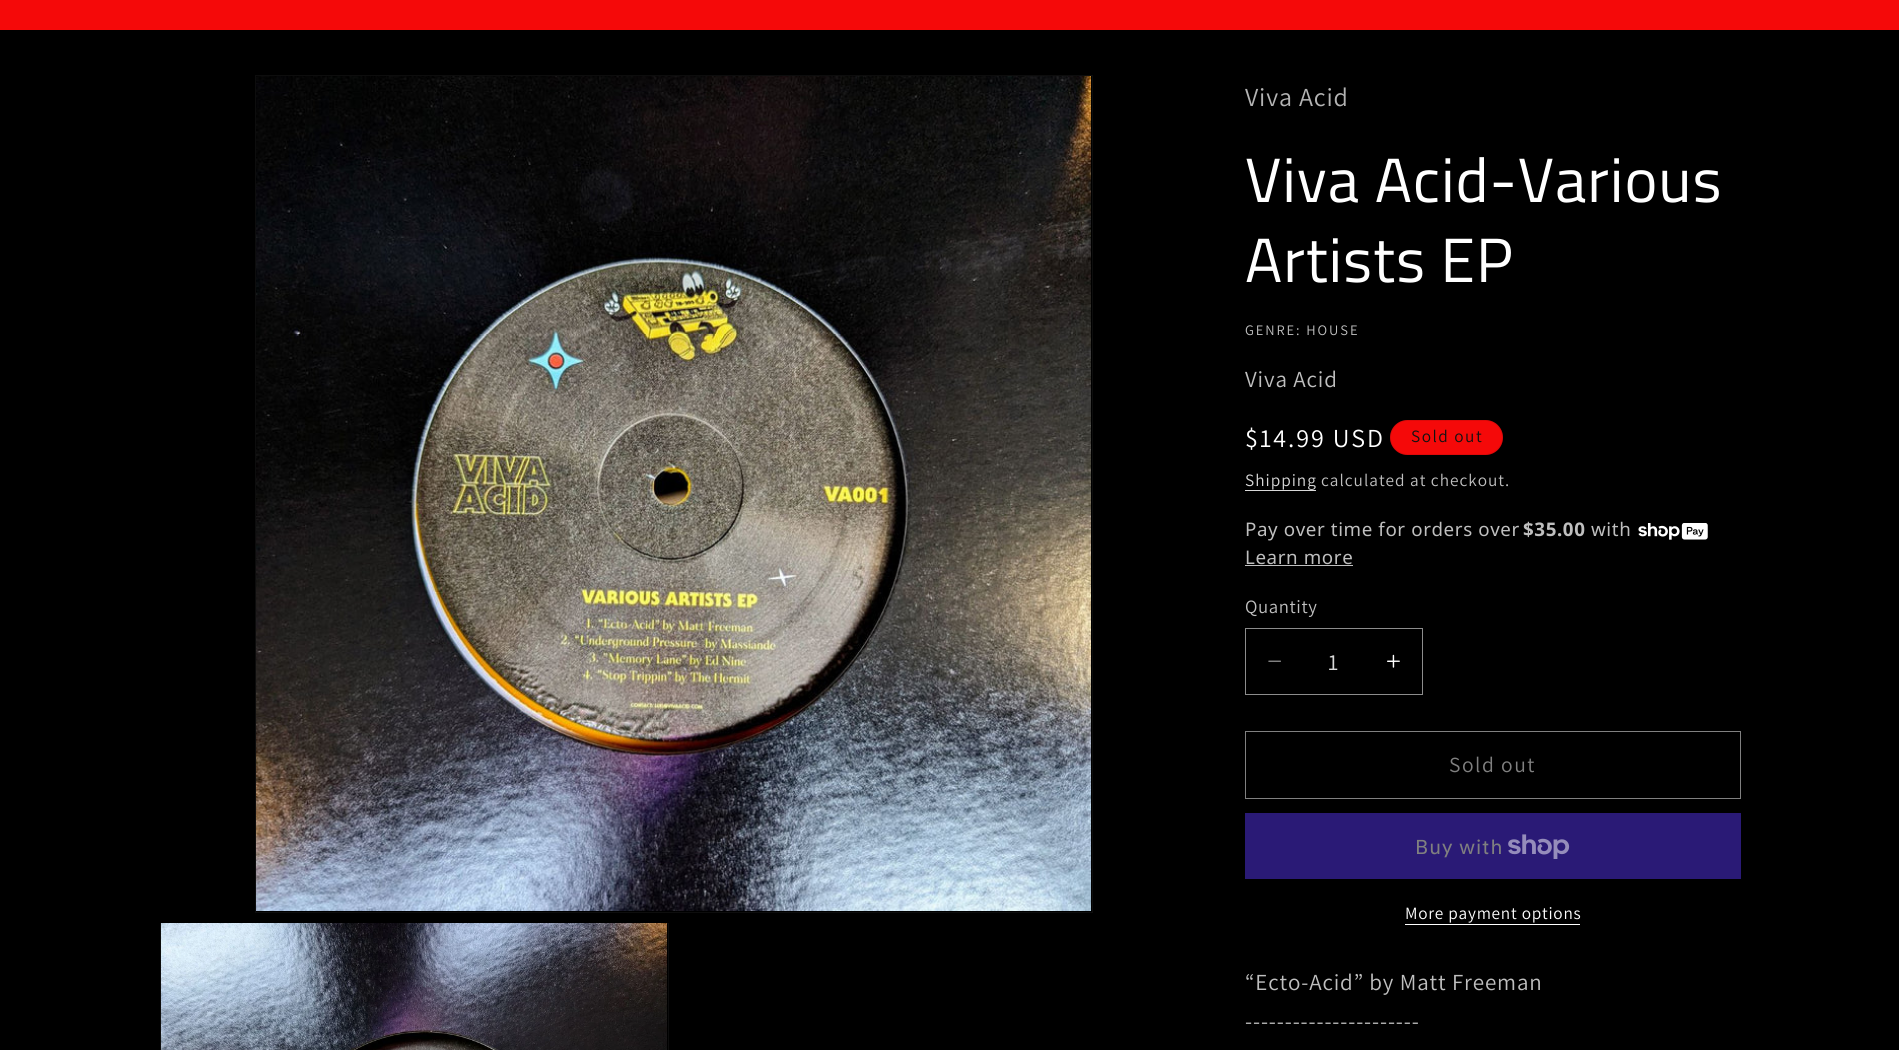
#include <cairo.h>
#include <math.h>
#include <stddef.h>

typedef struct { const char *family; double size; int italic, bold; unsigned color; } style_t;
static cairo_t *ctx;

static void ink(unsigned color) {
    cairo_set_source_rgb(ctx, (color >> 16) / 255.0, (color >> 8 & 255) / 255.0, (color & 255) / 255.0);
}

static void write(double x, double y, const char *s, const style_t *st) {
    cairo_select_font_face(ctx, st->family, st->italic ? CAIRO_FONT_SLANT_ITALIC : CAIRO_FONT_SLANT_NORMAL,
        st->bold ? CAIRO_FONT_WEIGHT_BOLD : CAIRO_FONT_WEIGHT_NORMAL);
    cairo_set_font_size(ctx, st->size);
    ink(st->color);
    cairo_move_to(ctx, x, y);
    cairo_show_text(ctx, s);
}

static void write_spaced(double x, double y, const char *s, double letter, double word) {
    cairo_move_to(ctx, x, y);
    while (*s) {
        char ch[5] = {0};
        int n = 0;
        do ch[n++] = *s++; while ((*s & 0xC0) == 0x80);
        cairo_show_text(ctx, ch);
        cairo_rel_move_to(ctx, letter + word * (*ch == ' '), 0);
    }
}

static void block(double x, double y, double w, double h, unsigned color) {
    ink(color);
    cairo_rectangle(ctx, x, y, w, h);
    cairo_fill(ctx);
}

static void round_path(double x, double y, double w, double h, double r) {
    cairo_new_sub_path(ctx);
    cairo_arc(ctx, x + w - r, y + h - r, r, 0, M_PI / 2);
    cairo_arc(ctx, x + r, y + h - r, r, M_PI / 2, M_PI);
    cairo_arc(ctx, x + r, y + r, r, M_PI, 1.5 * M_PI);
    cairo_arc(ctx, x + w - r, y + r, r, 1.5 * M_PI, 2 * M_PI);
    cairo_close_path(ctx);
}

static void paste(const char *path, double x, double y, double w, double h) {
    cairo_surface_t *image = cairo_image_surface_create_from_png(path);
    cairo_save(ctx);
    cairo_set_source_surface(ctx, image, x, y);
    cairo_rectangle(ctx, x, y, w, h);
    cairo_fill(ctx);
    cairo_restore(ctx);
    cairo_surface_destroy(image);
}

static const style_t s1 = {"Assistant", 23, 0, 0, 0xd9d9d9};

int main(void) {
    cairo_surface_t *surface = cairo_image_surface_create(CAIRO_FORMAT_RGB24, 1899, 1050);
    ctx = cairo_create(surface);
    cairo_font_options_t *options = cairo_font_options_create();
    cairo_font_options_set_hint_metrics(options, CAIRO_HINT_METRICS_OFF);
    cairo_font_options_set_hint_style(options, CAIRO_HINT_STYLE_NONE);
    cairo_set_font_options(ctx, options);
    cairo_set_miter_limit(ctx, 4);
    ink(0x000000);
    cairo_paint(ctx);
    block(0, 0, 1899, 30, 0xf50909);
    cairo_rectangle(ctx, 255.5, 75.5, 837, 837);
    ink(0x0d0d0d);
    cairo_set_line_width(ctx, 1);
    cairo_stroke(ctx);
    paste("pic1.png", 256, 76, 835, 835);
    cairo_rectangle(ctx, 160.5, 923.5, 508, 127);
    cairo_stroke(ctx);
    paste("pic2.png", 161, 923, 506, 127);
    cairo_select_font_face(ctx, "Assistant", CAIRO_FONT_SLANT_NORMAL, CAIRO_FONT_WEIGHT_NORMAL);
    cairo_set_font_size(ctx, 26);
    ink(0xb3b3b3);
    write_spaced(1245, 106, "Viva Acid", 0.85, 0);
    cairo_select_font_face(ctx, "Titillium Web", CAIRO_FONT_SLANT_NORMAL, CAIRO_FONT_WEIGHT_NORMAL);
    cairo_set_font_size(ctx, 62.5);
    ink(0xffffff);
    write_spaced(1245, 202, "Viva Acid-Various", 0.9, 0);
    write_spaced(1245, 282, "Artists EP", 0.9, 0);
    cairo_select_font_face(ctx, "Assistant", CAIRO_FONT_SLANT_NORMAL, CAIRO_FONT_WEIGHT_NORMAL);
    cairo_set_font_size(ctx, 14.5);
    ink(0xbfbfbf);
    write_spaced(1245, 335, "GENRE: HOUSE", 1.9, 0);
    cairo_set_font_size(ctx, 23);
    write_spaced(1245, 387, "Viva Acid", 0.85, 0);
    cairo_set_font_size(ctx, 26);
    ink(0xffffff);
    write_spaced(1245, 447, "$14.99 USD", 1.9, 0);
    ink(0xf50909);
    round_path(1390, 420, 113, 35, 17.5);
    cairo_fill(ctx);
    round_path(1390.5, 420.5, 112, 34, 17);
    cairo_set_source_rgba(ctx, 0.071, 0.071, 0.071, 0.1);
    cairo_stroke(ctx);
    cairo_set_font_size(ctx, 17.25);
    ink(0x121212);
    write_spaced(1411, 442, "Sold out", 1.5, 0);
    ink(0xd9d9d9);
    write_spaced(1245, 486, "Shipping", 1, 0);
    block(1245, 490, 71, 1, 0xd9d9d9);
    ink(0xbfbfbf);
    write_spaced(1321, 486, "calculated at checkout.", 1, 0);
    cairo_select_font_face(ctx, "Noto Sans", CAIRO_FONT_SLANT_NORMAL, CAIRO_FONT_WEIGHT_NORMAL);
    cairo_set_font_size(ctx, 18.75);
    write_spaced(1245, 536, "Pay over time for orders over", 0.6, 0);
    cairo_select_font_face(ctx, "Noto Sans", CAIRO_FONT_SLANT_NORMAL, CAIRO_FONT_WEIGHT_BOLD);
    write_spaced(1523, 536, "$35.00", 0.6, 0);
    cairo_select_font_face(ctx, "Noto Sans", CAIRO_FONT_SLANT_NORMAL, CAIRO_FONT_WEIGHT_NORMAL);
    write_spaced(1591, 536, "with", 0.6, 0);
    paste("pic3.png", 1638, 523, 70, 17);
    write_spaced(1245, 564, "Learn more", 0.6, 0);
    block(1245, 565, 108, 1, 0xbfbfbf);
    cairo_select_font_face(ctx, "Assistant", CAIRO_FONT_SLANT_NORMAL, CAIRO_FONT_WEIGHT_NORMAL);
    write_spaced(1245, 613, "Quantity", 0.6, 0);
    paste("pic4.png", 1268, 660, 13, 2);
    paste("pic5.png", 1387, 654, 13, 14);
    cairo_rectangle(ctx, 1245.5, 628.5, 177, 66);
    ink(0x8c8c8c);
    cairo_stroke(ctx);
    write(1328, 670, "1", &s1);
    cairo_rectangle(ctx, 1245.5, 731.5, 495, 67);
    ink(0x808080);
    cairo_stroke(ctx);
    cairo_set_font_size(ctx, 21.5);
    write_spaced(1449, 772, "Sold out", 1.5, 0);
    block(1245, 813, 496, 66, 0x2a1a76);
    cairo_select_font_face(ctx, "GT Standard", CAIRO_FONT_SLANT_NORMAL, CAIRO_FONT_WEIGHT_NORMAL);
    cairo_set_font_size(ctx, 20);
    ink(0x808080);
    write_spaced(1415, 854, "Buy with", 0.85, 0);
    paste("pic6.png", 1508, 834, 62, 25);
    cairo_select_font_face(ctx, "Assistant", CAIRO_FONT_SLANT_NORMAL, CAIRO_FONT_WEIGHT_NORMAL);
    cairo_set_font_size(ctx, 17.25);
    ink(0xffffff);
    write_spaced(1405, 919, "More payment options", 0.75, 0);
    block(1405, 924, 175, 1, 0xffffff);
    cairo_set_font_size(ctx, 23);
    ink(0xbfbfbf);
    write_spaced(1245, 990, "“Ecto-Acid” by Matt Freeman", 0.85, 0);
    write_spaced(1245, 1029, "----------------------", 0.85, 0);
    cairo_surface_write_to_png(surface, "screenshot.png");
    cairo_font_options_destroy(options);
    cairo_destroy(ctx);
    cairo_surface_destroy(surface);
    return 0;
}
